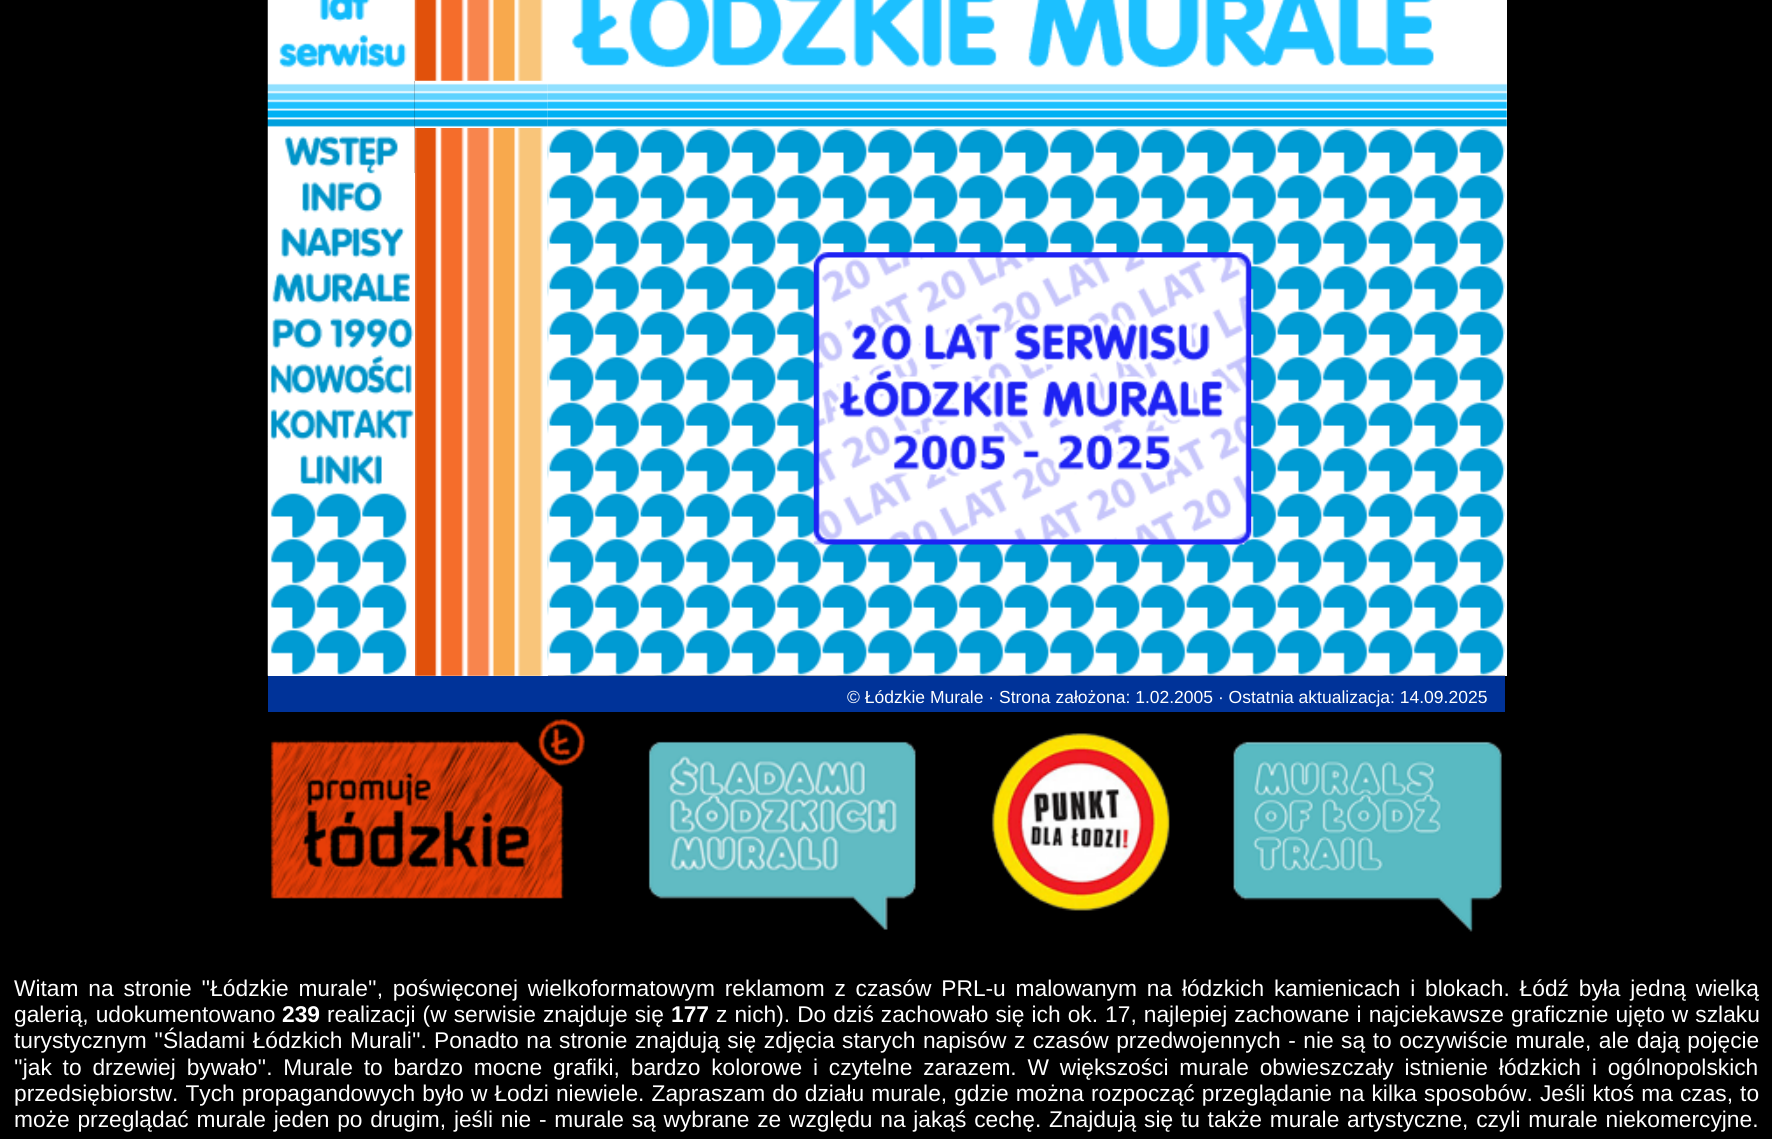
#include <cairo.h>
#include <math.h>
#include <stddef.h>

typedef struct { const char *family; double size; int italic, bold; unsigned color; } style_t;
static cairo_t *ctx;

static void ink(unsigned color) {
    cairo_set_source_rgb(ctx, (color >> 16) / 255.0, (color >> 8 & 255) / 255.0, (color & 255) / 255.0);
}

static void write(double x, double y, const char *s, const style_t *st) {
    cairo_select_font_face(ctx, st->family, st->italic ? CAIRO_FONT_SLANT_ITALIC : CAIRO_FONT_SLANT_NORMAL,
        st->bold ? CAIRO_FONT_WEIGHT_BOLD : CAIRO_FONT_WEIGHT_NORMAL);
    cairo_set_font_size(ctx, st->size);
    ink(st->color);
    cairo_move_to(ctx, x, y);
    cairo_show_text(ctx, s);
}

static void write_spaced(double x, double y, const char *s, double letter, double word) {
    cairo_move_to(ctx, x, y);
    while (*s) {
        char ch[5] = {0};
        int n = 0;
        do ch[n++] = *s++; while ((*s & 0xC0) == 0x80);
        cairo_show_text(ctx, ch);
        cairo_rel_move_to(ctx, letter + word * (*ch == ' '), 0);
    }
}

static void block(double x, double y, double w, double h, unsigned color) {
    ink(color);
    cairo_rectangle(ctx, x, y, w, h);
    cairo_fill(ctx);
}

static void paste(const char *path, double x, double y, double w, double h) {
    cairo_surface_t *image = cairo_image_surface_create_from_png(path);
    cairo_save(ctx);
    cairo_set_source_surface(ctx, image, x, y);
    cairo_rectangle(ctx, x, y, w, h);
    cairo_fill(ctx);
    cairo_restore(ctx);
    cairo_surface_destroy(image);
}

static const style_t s1 = {"Liberation Sans", 17.5, 0, 0, 0xffffff};
static const style_t s2 = {"Liberation Sans", 22.75, 0, 1, 0xffffff};

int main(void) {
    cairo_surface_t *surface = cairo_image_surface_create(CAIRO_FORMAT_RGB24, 1772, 1139);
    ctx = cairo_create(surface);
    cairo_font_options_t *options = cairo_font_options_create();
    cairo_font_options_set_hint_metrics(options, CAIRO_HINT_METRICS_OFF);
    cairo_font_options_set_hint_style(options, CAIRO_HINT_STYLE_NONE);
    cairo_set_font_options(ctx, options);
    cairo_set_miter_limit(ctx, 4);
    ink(0x000000);
    cairo_paint(ctx);
    block(268, 0, 1239, 81, 0xffffff);
    paste("pic1.png", 267, 0, 140, 81);
    paste("pic2.png", 414, 0, 129, 81);
    paste("pic3.png", 571, 0, 863, 68);
    block(415, 81, 1092, 47, 0xffffff);
    paste("pic5.png", 414, 83, 134, 44);
    paste("pic4.png", 267, 80, 148, 48);
    paste("pic6.png", 547, 83, 960, 44);
    block(415, 128, 133, 548, 0xffffff);
    paste("pic8.png", 414, 128, 129, 548);
    block(268, 173, 147, 46, 0xffffff);
    paste("pic7.png", 267, 128, 148, 46);
    paste("pic9.png", 547, 128, 958, 548);
    paste("pic10.png", 813, 252, 439, 293);
    block(1505, 128, 2, 548, 0xffffff);
    paste("pic11.png", 267, 173, 115, 46);
    block(405, 219, 10, 45, 0xffffff);
    block(268, 264, 147, 46, 0xffffff);
    paste("pic12.png", 267, 219, 138, 46);
    paste("pic13.png", 267, 264, 143, 46);
    block(414, 310, 1, 45, 0xffffff);
    block(268, 355, 147, 46, 0xffffff);
    paste("pic14.png", 267, 310, 147, 46);
    paste("pic15.png", 267, 355, 145, 46);
    block(414, 401, 1, 45, 0xffffff);
    block(268, 446, 147, 230, 0xffffff);
    paste("pic16.png", 267, 401, 147, 46);
    paste("pic17.png", 267, 446, 115, 46);
    paste("pic18.png", 267, 492, 140, 184);
    block(268, 676, 1237, 36, 0x003399);
    write(847, 703, "© Łódzkie Murale · Strona założona: 1.02.2005 · Ostatnia aktualizacja: 14.09.2025", &s1);
    paste("pic19.png", 270, 719, 315, 180);
    paste("pic20.png", 648, 741, 268, 189);
    paste("pic21.png", 991, 733, 179, 178);
    paste("pic22.png", 1233, 741, 269, 191);
    cairo_set_font_size(ctx, 22.75);
    write_spaced(14, 996, "Witam na stronie ''Łódzkie murale'', poświęconej wielkoformatowym reklamom z czasów PRL-u malowanym na łódzkich kamienicach i blokach. Łódź była jedną wielką", 0, 3.5);
    write_spaced(14, 1022, "galerią, udokumentowano", 0, 0.75);
    write(282, 1022, "239", &s2);
    cairo_select_font_face(ctx, "Liberation Sans", CAIRO_FONT_SLANT_NORMAL, CAIRO_FONT_WEIGHT_NORMAL);
    write_spaced(327, 1022, "realizacji (w serwisie znajduje się", 0, 0.75);
    write(671, 1022, "177", &s2);
    cairo_select_font_face(ctx, "Liberation Sans", CAIRO_FONT_SLANT_NORMAL, CAIRO_FONT_WEIGHT_NORMAL);
    write_spaced(716, 1022, "z nich). Do dziś zachowało się ich ok. 17, najlepiej zachowane i najciekawsze graficznie ujęto w szlaku", 0, 0.75);
    write_spaced(14, 1048, "turystycznym ''Śladami Łódzkich Murali''.", 0, 1.2);
    write_spaced(434, 1048, "Ponadto na stronie znajdują się zdjęcia starych napisów z czasów przedwojennych - nie są to oczywiście murale, ale dają pojęcie", 0, 1.2);
    write_spaced(14, 1075, "''jak to drzewiej bywało''. Murale to bardzo mocne grafiki, bardzo kolorowe i czytelne zarazem. W większości murale obwieszczały istnienie łódzkich i ogólnopolskich", 0, 4.5);
    write_spaced(14, 1101, "przedsiębiorstw. Tych propagandowych było w Łodzi niewiele. Zapraszam do działu murale, gdzie można rozpocząć przeglądanie na kilka sposobów. Jeśli ktoś ma czas, to", 0, 0.75);
    write_spaced(14, 1127, "może przeglądać murale jeden po drugim, jeśli nie - murale są wybrane ze względu na jakąś cechę. Znajdują się tu także murale artystyczne, czyli murale niekomercyjne.", 0, 1.45);
    cairo_surface_write_to_png(surface, "screenshot.png");
    cairo_font_options_destroy(options);
    cairo_destroy(ctx);
    cairo_surface_destroy(surface);
    return 0;
}
